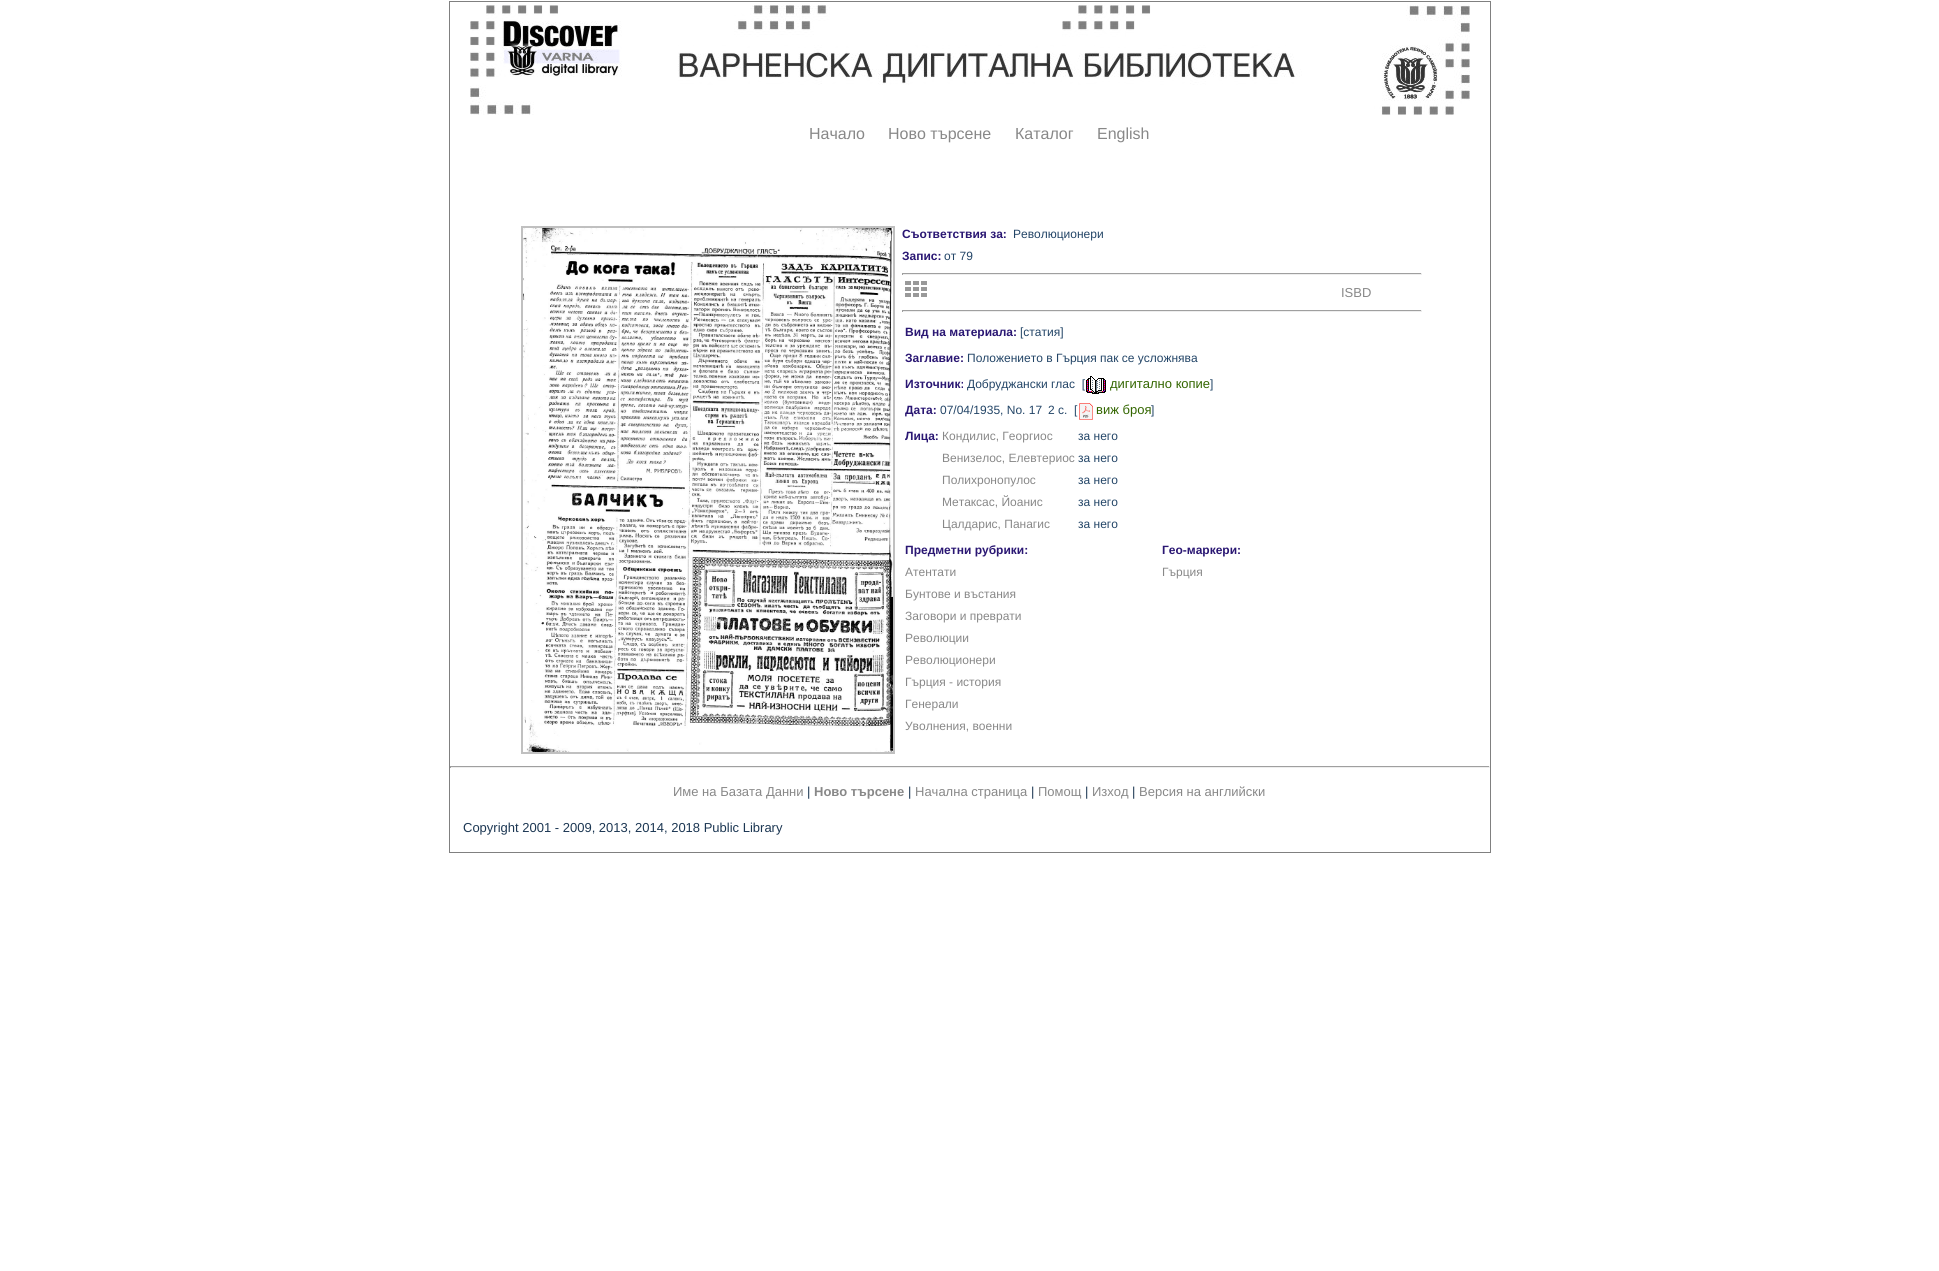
#include <cairo.h>
#include <math.h>
#include <stddef.h>

typedef struct { const char *family; double size; int italic, bold; unsigned color; } style_t;
static cairo_t *ctx;

static void ink(unsigned color) {
    cairo_set_source_rgb(ctx, (color >> 16) / 255.0, (color >> 8 & 255) / 255.0, (color & 255) / 255.0);
}

static void write(double x, double y, const char *s, const style_t *st) {
    cairo_select_font_face(ctx, st->family, st->italic ? CAIRO_FONT_SLANT_ITALIC : CAIRO_FONT_SLANT_NORMAL,
        st->bold ? CAIRO_FONT_WEIGHT_BOLD : CAIRO_FONT_WEIGHT_NORMAL);
    cairo_set_font_size(ctx, st->size);
    ink(st->color);
    cairo_move_to(ctx, x, y);
    cairo_show_text(ctx, s);
}

static void block(double x, double y, double w, double h, unsigned color) {
    ink(color);
    cairo_rectangle(ctx, x, y, w, h);
    cairo_fill(ctx);
}

static void paste(const char *path, double x, double y, double w, double h) {
    cairo_surface_t *image = cairo_image_surface_create_from_png(path);
    cairo_save(ctx);
    cairo_set_source_surface(ctx, image, x, y);
    cairo_rectangle(ctx, x, y, w, h);
    cairo_fill(ctx);
    cairo_restore(ctx);
    cairo_surface_destroy(image);
}

static const style_t s1 = {"Liberation Sans", 16, 0, 0, 0x888888};
static const style_t s2 = {"Liberation Sans", 12, 0, 1, 0x2a1773};
static const style_t s3 = {"Liberation Sans", 12, 0, 0, 0x234567};
static const style_t s4 = {"Liberation Sans", 13, 0, 0, 0x888888};
static const style_t s5 = {"Liberation Sans", 13, 0, 0, 0x336600};
static const style_t s6 = {"Liberation Sans", 12, 0, 0, 0x888888};
static const style_t s7 = {"Liberation Sans", 13, 0, 0, 0x1c3753};
static const style_t s8 = {"Liberation Sans", 13, 0, 1, 0x888888};

int main(void) {
    cairo_surface_t *surface = cairo_image_surface_create(CAIRO_FORMAT_RGB24, 1939, 1271);
    ctx = cairo_create(surface);
    cairo_font_options_t *options = cairo_font_options_create();
    cairo_font_options_set_hint_metrics(options, CAIRO_HINT_METRICS_OFF);
    cairo_font_options_set_hint_style(options, CAIRO_HINT_STYLE_NONE);
    cairo_set_font_options(ctx, options);
    cairo_set_miter_limit(ctx, 4);
    ink(0xffffff);
    cairo_paint(ctx);
    cairo_rectangle(ctx, 449.5, 1.5, 1041, 851);
    ink(0x808080);
    cairo_set_line_width(ctx, 1);
    cairo_stroke(ctx);
    paste("pic1.png", 470, 5, 1000, 110);
    write(809, 139, "Начало", &s1);
    write(888, 139, "Ново търсене", &s1);
    write(1015, 139, "Каталог", &s1);
    write(1097, 139, "English", &s1);
    cairo_rectangle(ctx, 522, 227, 372, 526);
    ink(0xc0c0c0);
    cairo_set_line_width(ctx, 2);
    cairo_stroke(ctx);
    paste("pic2.png", 523, 228, 370, 524);
    write(902, 238, "Съответствия за:", &s2);
    write(1013, 238, "Революционери", &s3);
    write(902, 260, "Запис:", &s2);
    write(944, 260, "от 79", &s3);
    block(902, 273, 520, 1, 0x9f9f9f);
    block(1421, 273, 1, 2, 0xeeeeee);
    block(902, 274, 520, 1, 0xeeeeee);
    block(902, 273, 1, 2, 0x9f9f9f);
    paste("pic3.png", 905, 281, 22, 16);
    write(1341, 297, "ISBD", &s4);
    block(902, 310, 520, 1, 0x9f9f9f);
    block(1421, 310, 1, 2, 0xeeeeee);
    block(902, 311, 520, 1, 0xeeeeee);
    block(902, 310, 1, 2, 0x9f9f9f);
    write(905, 336, "Вид на материала:", &s2);
    write(1020, 336, "[статия]", &s3);
    write(905, 362, "Заглавие:", &s2);
    write(967, 362, "Положението в Гърция пак се усложнява", &s3);
    write(905, 388, "Източник:", &s2);
    write(967, 388, "Добруджански глас  [", &s3);
    paste("pic4.png", 1086, 376, 20, 18);
    write(1110, 388, "дигитално копие", &s5);
    write(1210, 388, "]", &s3);
    write(905, 414, "Дата:", &s2);
    write(940, 414, "07/04/1935, No. 17", &s3);
    write(1048, 414, "2 с.", &s3);
    write(1074, 414, "[", &s3);
    paste("pic5.png", 1079, 403, 14, 17);
    write(1096, 414, "виж броя", &s5);
    write(1151, 414, "]", &s3);
    write(905, 440, "Лица:", &s2);
    write(942, 440, "Кондилис, Георгиос", &s6);
    write(1078, 440, "за него", &s3);
    write(942, 462, "Венизелос, Елевтериос", &s6);
    write(1078, 462, "за него", &s3);
    write(942, 484, "Полихронопулос", &s6);
    write(1078, 484, "за него", &s3);
    write(942, 506, "Метаксас, Йоанис", &s6);
    write(1078, 506, "за него", &s3);
    write(942, 528, "Цалдарис, Панагис", &s6);
    write(1078, 528, "за него", &s3);
    write(905, 554, "Предметни рубрики:", &s2);
    write(905, 576, "Атентати", &s6);
    write(905, 598, "Бунтове и въстания", &s6);
    write(905, 620, "Заговори и преврати", &s6);
    write(905, 642, "Революции", &s6);
    write(905, 664, "Революционери", &s6);
    write(905, 686, "Гърция - история", &s6);
    write(905, 708, "Генерали", &s6);
    write(905, 730, "Уволнения, военни", &s6);
    write(1162, 554, "Гео-маркери:", &s2);
    write(1162, 576, "Гърция", &s6);
    block(450, 766, 1040, 1, 0x9f9f9f);
    block(1489, 766, 1, 2, 0xeeeeee);
    block(450, 767, 1040, 1, 0xeeeeee);
    block(450, 766, 1, 2, 0x9f9f9f);
    write(673, 796, "Име на Базата Данни", &s4);
    write(807, 796, "|", &s7);
    write(814, 796, "Ново търсене", &s8);
    write(908, 796, "|", &s7);
    write(915, 796, "Начална страница", &s4);
    write(1031, 796, "|", &s7);
    write(1038, 796, "Помощ", &s4);
    write(1085, 796, "|", &s7);
    write(1092, 796, "Изход", &s4);
    write(1132, 796, "|", &s7);
    write(1139, 796, "Версия на английски", &s4);
    write(463, 832, "Copyright 2001 - 2009, 2013, 2014, 2018 Public Library", &s7);
    cairo_surface_write_to_png(surface, "screenshot.png");
    cairo_font_options_destroy(options);
    cairo_destroy(ctx);
    cairo_surface_destroy(surface);
    return 0;
}
